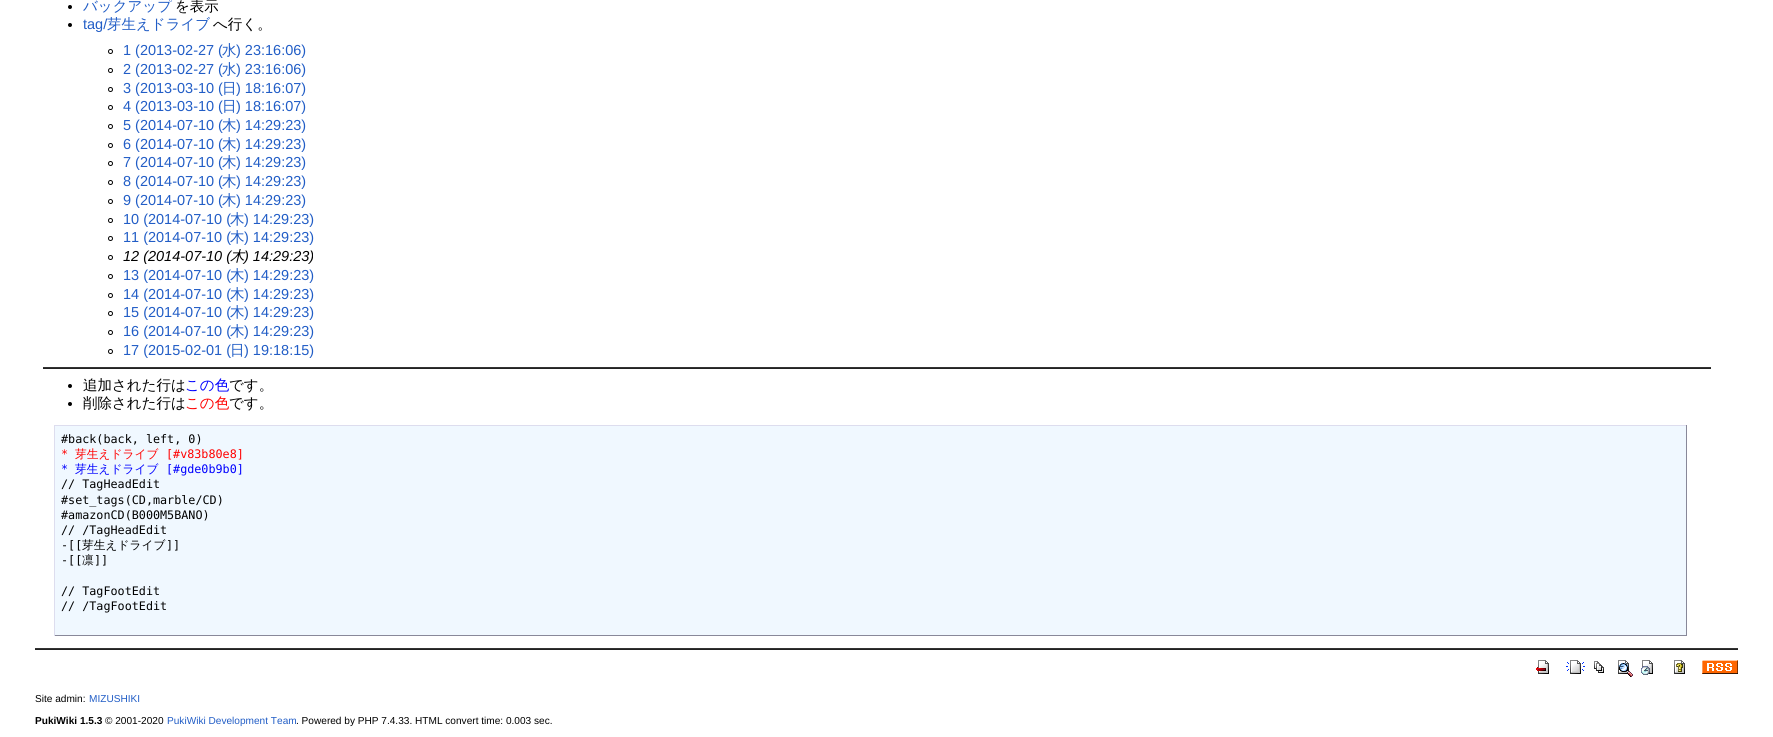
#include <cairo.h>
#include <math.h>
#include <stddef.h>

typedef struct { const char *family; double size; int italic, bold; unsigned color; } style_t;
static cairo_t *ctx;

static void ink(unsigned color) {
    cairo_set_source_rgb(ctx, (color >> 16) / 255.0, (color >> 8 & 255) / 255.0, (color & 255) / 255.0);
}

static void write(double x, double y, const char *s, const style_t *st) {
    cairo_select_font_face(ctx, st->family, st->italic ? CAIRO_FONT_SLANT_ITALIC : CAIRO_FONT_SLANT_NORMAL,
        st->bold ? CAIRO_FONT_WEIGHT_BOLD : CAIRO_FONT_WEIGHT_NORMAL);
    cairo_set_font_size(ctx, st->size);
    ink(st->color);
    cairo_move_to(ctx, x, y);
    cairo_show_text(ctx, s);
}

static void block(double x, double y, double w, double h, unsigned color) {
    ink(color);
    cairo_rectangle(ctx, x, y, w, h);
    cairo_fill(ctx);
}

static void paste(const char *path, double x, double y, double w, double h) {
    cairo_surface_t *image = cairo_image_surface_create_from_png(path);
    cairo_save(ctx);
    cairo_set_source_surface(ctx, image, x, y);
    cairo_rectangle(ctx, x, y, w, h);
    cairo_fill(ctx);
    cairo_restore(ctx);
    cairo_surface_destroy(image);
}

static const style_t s1 = {"WenQuanYi Zen Hei Medium", 14.5, 0, 0, 0x215dc6};
static const style_t s2 = {"WenQuanYi Zen Hei Medium", 14.5, 0, 0, 0x000000};
static const style_t s3 = {"Liberation Sans", 14.5, 0, 0, 0x215dc6};
static const style_t s4 = {"Liberation Sans", 14.5, 1, 0, 0x000000};
static const style_t s5 = {"WenQuanYi Zen Hei Medium", 14.5, 1, 0, 0x000000};
static const style_t s6 = {"WenQuanYi Zen Hei Medium", 14.5, 0, 0, 0x0000ff};
static const style_t s7 = {"WenQuanYi Zen Hei Medium", 14.5, 0, 0, 0xff0000};
static const style_t s8 = {"DejaVu Sans Mono", 11.75, 0, 0, 0x000000};
static const style_t s9 = {"DejaVu Sans Mono", 11.75, 0, 0, 0xff0000};
static const style_t s10 = {"WenQuanYi Zen Hei Medium", 11.75, 0, 0, 0xff0000};
static const style_t s11 = {"DejaVu Sans Mono", 11.75, 0, 0, 0x0000ff};
static const style_t s12 = {"WenQuanYi Zen Hei Medium", 11.75, 0, 0, 0x0000ff};
static const style_t s13 = {"WenQuanYi Zen Hei Medium", 11.75, 0, 0, 0x000000};
static const style_t s14 = {"Liberation Sans", 10.1, 0, 0, 0x000000};
static const style_t s15 = {"Liberation Sans", 10.1, 0, 0, 0x215dc6};
static const style_t s16 = {"Liberation Sans", 10.1, 0, 1, 0x000000};

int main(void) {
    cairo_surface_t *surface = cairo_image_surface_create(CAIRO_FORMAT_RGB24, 1773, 737);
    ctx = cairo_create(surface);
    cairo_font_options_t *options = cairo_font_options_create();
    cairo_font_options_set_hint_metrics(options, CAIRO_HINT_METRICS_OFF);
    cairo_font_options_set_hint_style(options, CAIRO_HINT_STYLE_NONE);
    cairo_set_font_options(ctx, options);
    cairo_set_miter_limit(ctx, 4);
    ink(0xffffff);
    cairo_paint(ctx);
    ink(0x000000);
    cairo_arc(ctx, 70, 7, 2, 0, 2 * M_PI);
    cairo_fill(ctx);
    write(83, 11, "バックアップ", &s1);
    write(175, 11, "を表示", &s2);
    cairo_new_path(ctx);
    cairo_arc(ctx, 70, 25, 2, 0, 2 * M_PI);
    cairo_fill(ctx);
    write(83, 29, "tag/", &s3);
    write(107, 29, "芽生えドライブ", &s1);
    write(213, 29, "へ行く。", &s2);
    cairo_new_path(ctx);
    cairo_arc(ctx, 110.5, 51.5, 2, 0, 2 * M_PI);
    cairo_set_line_width(ctx, 1);
    cairo_stroke(ctx);
    write(123, 55, "1 (2013-02-27 (", &s3);
    write(222, 55, "水", &s1);
    write(236, 55, ") 23:16:06)", &s3);
    cairo_new_path(ctx);
    cairo_arc(ctx, 110.5, 70.5, 2, 0, 2 * M_PI);
    ink(0x000000);
    cairo_stroke(ctx);
    write(123, 74, "2 (2013-02-27 (", &s3);
    write(222, 74, "水", &s1);
    write(236, 74, ") 23:16:06)", &s3);
    cairo_new_path(ctx);
    cairo_arc(ctx, 110.5, 89.5, 2, 0, 2 * M_PI);
    ink(0x000000);
    cairo_stroke(ctx);
    write(123, 93, "3 (2013-03-10 (", &s3);
    write(222, 93, "日", &s1);
    write(236, 93, ") 18:16:07)", &s3);
    cairo_new_path(ctx);
    cairo_arc(ctx, 110.5, 107.5, 2, 0, 2 * M_PI);
    ink(0x000000);
    cairo_stroke(ctx);
    write(123, 111, "4 (2013-03-10 (", &s3);
    write(222, 111, "日", &s1);
    write(236, 111, ") 18:16:07)", &s3);
    cairo_new_path(ctx);
    cairo_arc(ctx, 110.5, 126.5, 2, 0, 2 * M_PI);
    ink(0x000000);
    cairo_stroke(ctx);
    write(123, 130, "5 (2014-07-10 (", &s3);
    write(222, 130, "木", &s1);
    write(236, 130, ") 14:29:23)", &s3);
    cairo_new_path(ctx);
    cairo_arc(ctx, 110.5, 145.5, 2, 0, 2 * M_PI);
    ink(0x000000);
    cairo_stroke(ctx);
    write(123, 149, "6 (2014-07-10 (", &s3);
    write(222, 149, "木", &s1);
    write(236, 149, ") 14:29:23)", &s3);
    cairo_new_path(ctx);
    cairo_arc(ctx, 110.5, 163.5, 2, 0, 2 * M_PI);
    ink(0x000000);
    cairo_stroke(ctx);
    write(123, 167, "7 (2014-07-10 (", &s3);
    write(222, 167, "木", &s1);
    write(236, 167, ") 14:29:23)", &s3);
    cairo_new_path(ctx);
    cairo_arc(ctx, 110.5, 182.5, 2, 0, 2 * M_PI);
    ink(0x000000);
    cairo_stroke(ctx);
    write(123, 186, "8 (2014-07-10 (", &s3);
    write(222, 186, "木", &s1);
    write(236, 186, ") 14:29:23)", &s3);
    cairo_new_path(ctx);
    cairo_arc(ctx, 110.5, 201.5, 2, 0, 2 * M_PI);
    ink(0x000000);
    cairo_stroke(ctx);
    write(123, 205, "9 (2014-07-10 (", &s3);
    write(222, 205, "木", &s1);
    write(236, 205, ") 14:29:23)", &s3);
    cairo_new_path(ctx);
    cairo_arc(ctx, 110.5, 220.5, 2, 0, 2 * M_PI);
    ink(0x000000);
    cairo_stroke(ctx);
    write(123, 224, "10 (2014-07-10 (", &s3);
    write(230, 224, "木", &s1);
    write(244, 224, ") 14:29:23)", &s3);
    cairo_new_path(ctx);
    cairo_arc(ctx, 110.5, 238.5, 2, 0, 2 * M_PI);
    ink(0x000000);
    cairo_stroke(ctx);
    write(123, 242, "11 (2014-07-10 (", &s3);
    write(230, 242, "木", &s1);
    write(244, 242, ") 14:29:23)", &s3);
    cairo_new_path(ctx);
    cairo_arc(ctx, 110.5, 257.5, 2, 0, 2 * M_PI);
    ink(0x000000);
    cairo_stroke(ctx);
    write(123, 261, "12 (2014-07-10 (", &s4);
    write(230, 261, "木", &s5);
    write(244, 261, ") 14:29:23)", &s4);
    cairo_new_path(ctx);
    cairo_arc(ctx, 110.5, 276.5, 2, 0, 2 * M_PI);
    cairo_stroke(ctx);
    write(123, 280, "13 (2014-07-10 (", &s3);
    write(230, 280, "木", &s1);
    write(244, 280, ") 14:29:23)", &s3);
    cairo_new_path(ctx);
    cairo_arc(ctx, 110.5, 295.5, 2, 0, 2 * M_PI);
    ink(0x000000);
    cairo_stroke(ctx);
    write(123, 299, "14 (2014-07-10 (", &s3);
    write(230, 299, "木", &s1);
    write(244, 299, ") 14:29:23)", &s3);
    cairo_new_path(ctx);
    cairo_arc(ctx, 110.5, 313.5, 2, 0, 2 * M_PI);
    ink(0x000000);
    cairo_stroke(ctx);
    write(123, 317, "15 (2014-07-10 (", &s3);
    write(230, 317, "木", &s1);
    write(244, 317, ") 14:29:23)", &s3);
    cairo_new_path(ctx);
    cairo_arc(ctx, 110.5, 332.5, 2, 0, 2 * M_PI);
    ink(0x000000);
    cairo_stroke(ctx);
    write(123, 336, "16 (2014-07-10 (", &s3);
    write(230, 336, "木", &s1);
    write(244, 336, ") 14:29:23)", &s3);
    cairo_new_path(ctx);
    cairo_arc(ctx, 110.5, 351.5, 2, 0, 2 * M_PI);
    ink(0x000000);
    cairo_stroke(ctx);
    write(123, 355, "17 (2015-02-01 (", &s3);
    write(230, 355, "日", &s1);
    write(244, 355, ") 19:18:15)", &s3);
    block(43, 367, 1668, 1, 0x333333);
    block(43, 368, 1668, 1, 0x222222);
    ink(0x000000);
    cairo_new_path(ctx);
    cairo_arc(ctx, 70, 386, 2, 0, 2 * M_PI);
    cairo_fill(ctx);
    write(83, 390, "追加された行は", &s2);
    write(185, 390, "この色", &s6);
    write(229, 390, "です。", &s2);
    cairo_new_path(ctx);
    cairo_arc(ctx, 70, 404, 2, 0, 2 * M_PI);
    cairo_fill(ctx);
    write(83, 408, "削除された行は", &s2);
    write(185, 408, "この色", &s7);
    write(229, 408, "です。", &s2);
    block(55, 426, 1631, 209, 0xf0f8ff);
    block(54, 425, 1633, 1, 0xddddee);
    block(1686, 425, 1, 211, 0x888899);
    block(54, 635, 1633, 1, 0x888899);
    block(54, 425, 1, 211, 0xddddee);
    write(61, 443, "#back(back, left, 0)", &s8);
    write(61, 458, "*", &s9);
    write(75, 458, "芽生えドライブ", &s10);
    write(166, 458, "[#v83b80e8]", &s9);
    write(61, 473, "*", &s11);
    write(75, 473, "芽生えドライブ", &s12);
    write(166, 473, "[#gde0b9b0]", &s11);
    write(61, 488, "// TagHeadEdit", &s8);
    write(61, 504, "#set_tags(CD,marble/CD)", &s8);
    write(61, 519, "#amazonCD(B000M5BANO)", &s8);
    write(61, 534, "// /TagHeadEdit", &s8);
    write(61, 549, "-[[", &s8);
    write(82, 549, "芽生えドライブ", &s13);
    write(166, 549, "]]", &s8);
    write(61, 564, "-[[", &s8);
    write(82, 564, "凛", &s13);
    write(94, 564, "]]", &s8);
    write(61, 595, "// TagFootEdit", &s8);
    write(61, 610, "// /TagFootEdit", &s8);
    block(35, 648, 1703, 1, 0x333333);
    block(35, 649, 1703, 1, 0x222222);
    paste("pic1.png", 1536, 660, 13, 14);
    paste("pic2.png", 1566, 660, 19, 14);
    paste("pic3.png", 1594, 661, 10, 12);
    paste("pic4.png", 1618, 660, 15, 17);
    paste("pic5.png", 1641, 660, 12, 15);
    paste("pic6.png", 1674, 660, 11, 14);
    paste("pic7.png", 1702, 660, 36, 14);
    write(35, 702, "Site admin:", &s14);
    write(89, 702, "MIZUSHIKI", &s15);
    write(35, 724, "PukiWiki 1.5.3", &s16);
    write(105, 724, "© 2001-2020", &s14);
    write(167, 724, "PukiWiki Development Team", &s15);
    write(296, 724, ". Powered by PHP 7.4.33. HTML convert time: 0.003 sec.", &s14);
    cairo_surface_write_to_png(surface, "screenshot.png");
    cairo_font_options_destroy(options);
    cairo_destroy(ctx);
    cairo_surface_destroy(surface);
    return 0;
}
